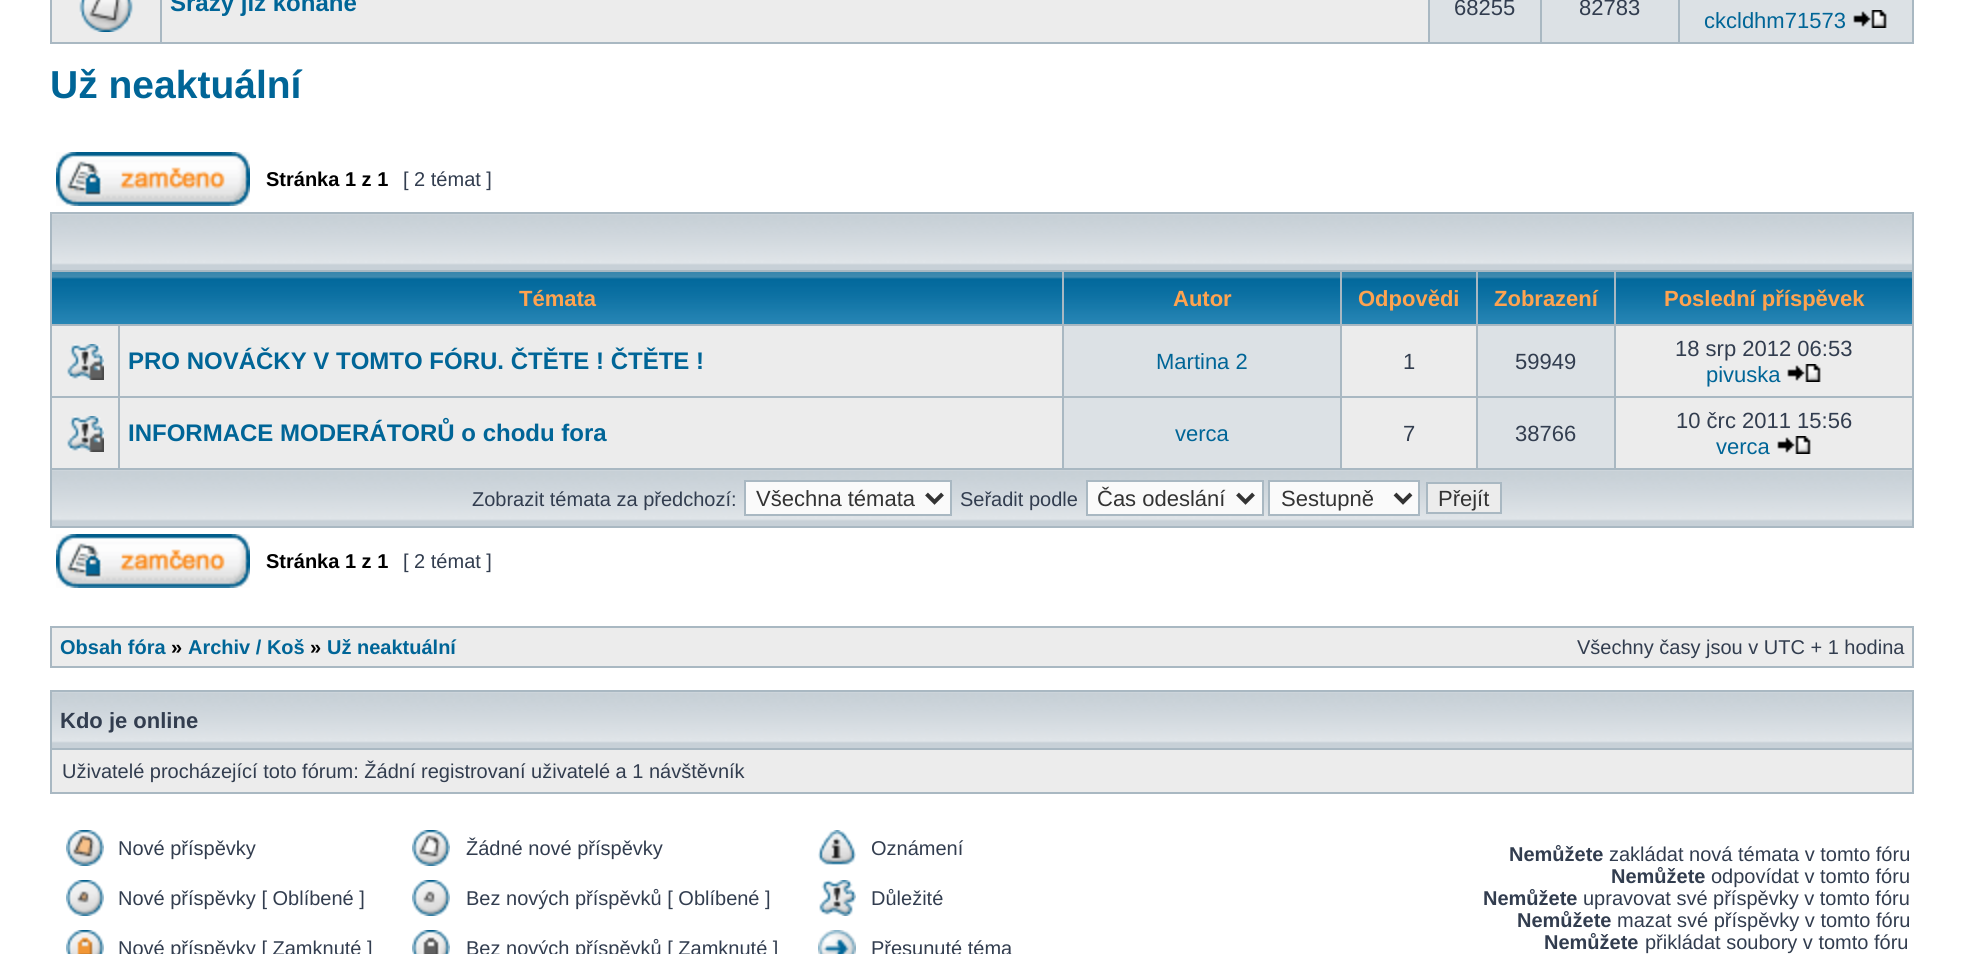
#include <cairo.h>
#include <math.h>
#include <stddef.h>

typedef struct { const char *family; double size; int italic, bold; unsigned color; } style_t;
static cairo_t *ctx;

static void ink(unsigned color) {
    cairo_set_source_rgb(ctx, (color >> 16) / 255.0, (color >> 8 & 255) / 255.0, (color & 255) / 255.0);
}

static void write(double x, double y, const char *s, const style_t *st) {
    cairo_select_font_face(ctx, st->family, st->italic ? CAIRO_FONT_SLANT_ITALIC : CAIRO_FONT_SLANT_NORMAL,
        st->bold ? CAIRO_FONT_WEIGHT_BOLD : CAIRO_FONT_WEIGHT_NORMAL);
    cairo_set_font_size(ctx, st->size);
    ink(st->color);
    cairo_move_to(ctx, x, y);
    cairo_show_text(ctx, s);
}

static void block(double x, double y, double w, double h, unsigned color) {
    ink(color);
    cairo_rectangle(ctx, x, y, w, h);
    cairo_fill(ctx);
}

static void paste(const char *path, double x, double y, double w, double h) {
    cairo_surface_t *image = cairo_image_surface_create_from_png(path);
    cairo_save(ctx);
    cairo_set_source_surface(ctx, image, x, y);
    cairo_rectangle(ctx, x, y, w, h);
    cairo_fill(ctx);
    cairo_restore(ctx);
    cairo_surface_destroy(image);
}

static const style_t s1 = {"Liberation Sans", 24, 0, 1, 0x006597};
static const style_t s2 = {"Liberation Sans", 22, 0, 0, 0x323d4f};
static const style_t s3 = {"Liberation Sans", 22, 0, 0, 0x006597};
static const style_t s4 = {"Liberation Sans", 39, 0, 1, 0x006597};
static const style_t s5 = {"Liberation Sans", 20, 0, 1, 0x000000};
static const style_t s6 = {"Liberation Sans", 20, 0, 0, 0x323d4f};
static const style_t s7 = {"Liberation Sans", 22, 0, 1, 0xffa34f};
static const style_t s8 = {"Liberation Sans", 22, 0, 0, 0x333333};
static const style_t s9 = {"Liberation Sans", 20, 0, 1, 0x006597};
static const style_t s10 = {"Liberation Sans", 22, 0, 1, 0x323d4f};
static const style_t s11 = {"Liberation Sans", 20, 0, 1, 0x323d4f};

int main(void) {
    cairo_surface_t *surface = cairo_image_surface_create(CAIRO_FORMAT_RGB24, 1963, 954);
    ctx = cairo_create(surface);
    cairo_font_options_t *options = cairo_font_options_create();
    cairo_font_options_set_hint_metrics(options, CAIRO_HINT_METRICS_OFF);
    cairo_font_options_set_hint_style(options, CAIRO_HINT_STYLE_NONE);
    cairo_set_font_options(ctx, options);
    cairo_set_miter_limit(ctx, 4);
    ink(0xffffff);
    cairo_paint(ctx);
    block(50, 0, 1864, 44, 0xa9b8c2);
    block(52, 0, 108, 42, 0xececec);
    paste("pic1.png", 79, 0, 54, 32);
    block(162, 0, 1266, 42, 0xececec);
    write(170, 11, "Srazy již konané", &s1);
    block(1430, 0, 110, 42, 0xdce1e5);
    write(1454, 15, "68255", &s2);
    block(1542, 0, 136, 42, 0xdce1e5);
    write(1579, 15, "82783", &s2);
    block(1680, 0, 232, 42, 0xdce1e5);
    write(1704, 28, "ckcldhm71573", &s3);
    paste("pic2.png", 1853, 10, 34, 18);
    write(50, 98, "Už neaktuální", &s4);
    paste("pic3.png", 56, 152, 194, 54);
    write(266, 186, "Stránka 1 z 1", &s5);
    write(403, 186, "[ 2 témat ]", &s6);
    block(50, 212, 1864, 316, 0xa9b8c2);
    block(52, 265, 1860, 5, 0xc7d0d7);
    paste("pic4.png", 52, 214, 1860, 51);
    paste("pic5.png", 52, 272, 1010, 52);
    write(519, 306, "Témata", &s7);
    paste("pic6.png", 1064, 272, 276, 52);
    write(1173, 306, "Autor", &s7);
    paste("pic7.png", 1342, 272, 134, 52);
    write(1358, 306, "Odpovědi", &s7);
    paste("pic8.png", 1478, 272, 136, 52);
    write(1494, 306, "Zobrazení", &s7);
    paste("pic9.png", 1616, 272, 296, 52);
    write(1664, 306, "Poslední příspěvek", &s7);
    block(52, 326, 66, 70, 0xececec);
    paste("pic10.png", 67, 344, 37, 36);
    block(120, 326, 942, 70, 0xececec);
    write(128, 369, "PRO NOVÁČKY V TOMTO FÓRU. ČTĚTE ! ČTĚTE !", &s1);
    block(1064, 326, 276, 70, 0xdce1e5);
    write(1156, 369, "Martina 2", &s3);
    block(1342, 326, 134, 70, 0xececec);
    write(1403, 369, "1", &s2);
    block(1478, 326, 136, 70, 0xdce1e5);
    write(1515, 369, "59949", &s2);
    block(1616, 326, 296, 70, 0xececec);
    write(1675, 356, "18 srp 2012 06:53", &s2);
    write(1706, 382, "pivuska", &s3);
    paste("pic11.png", 1787, 364, 34, 18);
    block(52, 398, 66, 70, 0xececec);
    paste("pic10.png", 67, 416, 37, 36);
    block(120, 398, 942, 70, 0xececec);
    write(128, 441, "INFORMACE MODERÁTORŮ o chodu fora", &s1);
    block(1064, 398, 276, 70, 0xdce1e5);
    write(1175, 441, "verca", &s3);
    block(1342, 398, 134, 70, 0xececec);
    write(1403, 441, "7", &s2);
    block(1478, 398, 136, 70, 0xdce1e5);
    write(1515, 441, "38766", &s2);
    block(1616, 398, 296, 70, 0xececec);
    write(1676, 428, "10 črc 2011 15:56", &s2);
    write(1716, 454, "verca", &s3);
    paste("pic11.png", 1777, 436, 34, 18);
    block(52, 521, 1860, 5, 0xc7d0d7);
    paste("pic4.png", 52, 470, 1860, 51);
    write(472, 506, "Zobrazit témata za předchozí:", &s6);
    ink(0xfafafa);
    cairo_rectangle(ctx, 745, 481, 206, 34);
    cairo_fill_preserve(ctx);
    ink(0xa9b8c2);
    cairo_stroke(ctx);
    cairo_new_path(ctx);
    cairo_move_to(ctx, 926.5, 494);
    cairo_line_to(ctx, 934.5, 502);
    cairo_line_to(ctx, 942.5, 494);
    ink(0x333333);
    cairo_set_line_width(ctx, 4);
    cairo_stroke(ctx);
    write(756, 506, "Všechna témata", &s8);
    write(960, 506, "Seřadit podle", &s6);
    ink(0xfafafa);
    cairo_rectangle(ctx, 1087, 481, 176, 34);
    cairo_fill_preserve(ctx);
    ink(0xa9b8c2);
    cairo_set_line_width(ctx, 2);
    cairo_stroke(ctx);
    cairo_new_path(ctx);
    cairo_move_to(ctx, 1237.5, 494);
    cairo_line_to(ctx, 1245.5, 502);
    cairo_line_to(ctx, 1253.5, 494);
    ink(0x333333);
    cairo_set_line_width(ctx, 4);
    cairo_stroke(ctx);
    write(1097, 506, "Čas odeslání", &s8);
    ink(0xfafafa);
    cairo_rectangle(ctx, 1269, 481, 150, 34);
    cairo_fill_preserve(ctx);
    ink(0xa9b8c2);
    cairo_set_line_width(ctx, 2);
    cairo_stroke(ctx);
    cairo_new_path(ctx);
    cairo_move_to(ctx, 1395, 494);
    cairo_line_to(ctx, 1403, 502);
    cairo_line_to(ctx, 1411, 494);
    ink(0x333333);
    cairo_set_line_width(ctx, 4);
    cairo_stroke(ctx);
    write(1281, 506, "Sestupně", &s8);
    ink(0xececec);
    cairo_rectangle(ctx, 1427, 483, 74, 30);
    cairo_fill_preserve(ctx);
    ink(0xa9b8c2);
    cairo_set_line_width(ctx, 2);
    cairo_stroke(ctx);
    write(1438, 506, "Přejít", &s8);
    paste("pic3.png", 56, 534, 194, 54);
    write(266, 568, "Stránka 1 z 1", &s5);
    write(403, 568, "[ 2 témat ]", &s6);
    block(50, 626, 1864, 42, 0xa9b8c2);
    block(52, 628, 1860, 38, 0xececec);
    write(60, 654, "Obsah fóra", &s9);
    write(171, 654, "»", &s5);
    write(188, 654, "Archiv / Koš", &s9);
    write(310, 654, "»", &s5);
    write(327, 654, "Už neaktuální", &s9);
    write(1577, 654, "Všechny časy jsou v UTC + 1 hodina", &s6);
    block(50, 690, 1864, 104, 0xa9b8c2);
    block(52, 743, 1860, 5, 0xc7d0d7);
    paste("pic12.png", 52, 692, 1860, 51);
    write(60, 728, "Kdo je online", &s10);
    block(52, 750, 1860, 42, 0xececec);
    write(62, 778, "Uživatelé procházející toto fórum: Žádní registrovaní uživatelé a 1 návštěvník", &s6);
    paste("pic13.png", 66, 830, 38, 36);
    write(118, 855, "Nové příspěvky", &s6);
    paste("pic14.png", 412, 830, 38, 36);
    write(466, 855, "Žádné nové příspěvky", &s6);
    paste("pic15.png", 818, 830, 38, 35);
    write(871, 855, "Oznámení", &s6);
    paste("pic16.png", 66, 880, 38, 36);
    write(118, 905, "Nové příspěvky [ Oblíbené ]", &s6);
    paste("pic17.png", 412, 880, 38, 36);
    write(466, 905, "Bez nových příspěvků [ Oblíbené ]", &s6);
    paste("pic18.png", 819, 880, 37, 36);
    write(871, 905, "Důležité", &s6);
    paste("pic19.png", 66, 930, 38, 24);
    write(118, 955, "Nové příspěvky [ Zamknuté ]", &s6);
    paste("pic20.png", 412, 930, 38, 24);
    write(466, 955, "Bez nových příspěvků [ Zamknuté ]", &s6);
    paste("pic21.png", 818, 930, 38, 24);
    write(871, 955, "Přesunuté téma", &s6);
    write(1509, 861, "Nemůžete", &s11);
    write(1609, 861, "zakládat nová témata v tomto fóru", &s6);
    write(1611, 883, "Nemůžete", &s11);
    write(1711, 883, "odpovídat v tomto fóru", &s6);
    write(1483, 905, "Nemůžete", &s11);
    write(1583, 905, "upravovat své příspěvky v tomto fóru", &s6);
    write(1517, 927, "Nemůžete", &s11);
    write(1617, 927, "mazat své příspěvky v tomto fóru", &s6);
    write(1544, 949, "Nemůžete", &s11);
    write(1645, 949, "přikládat soubory v tomto fóru", &s6);
    cairo_surface_write_to_png(surface, "screenshot.png");
    cairo_font_options_destroy(options);
    cairo_destroy(ctx);
    cairo_surface_destroy(surface);
    return 0;
}
